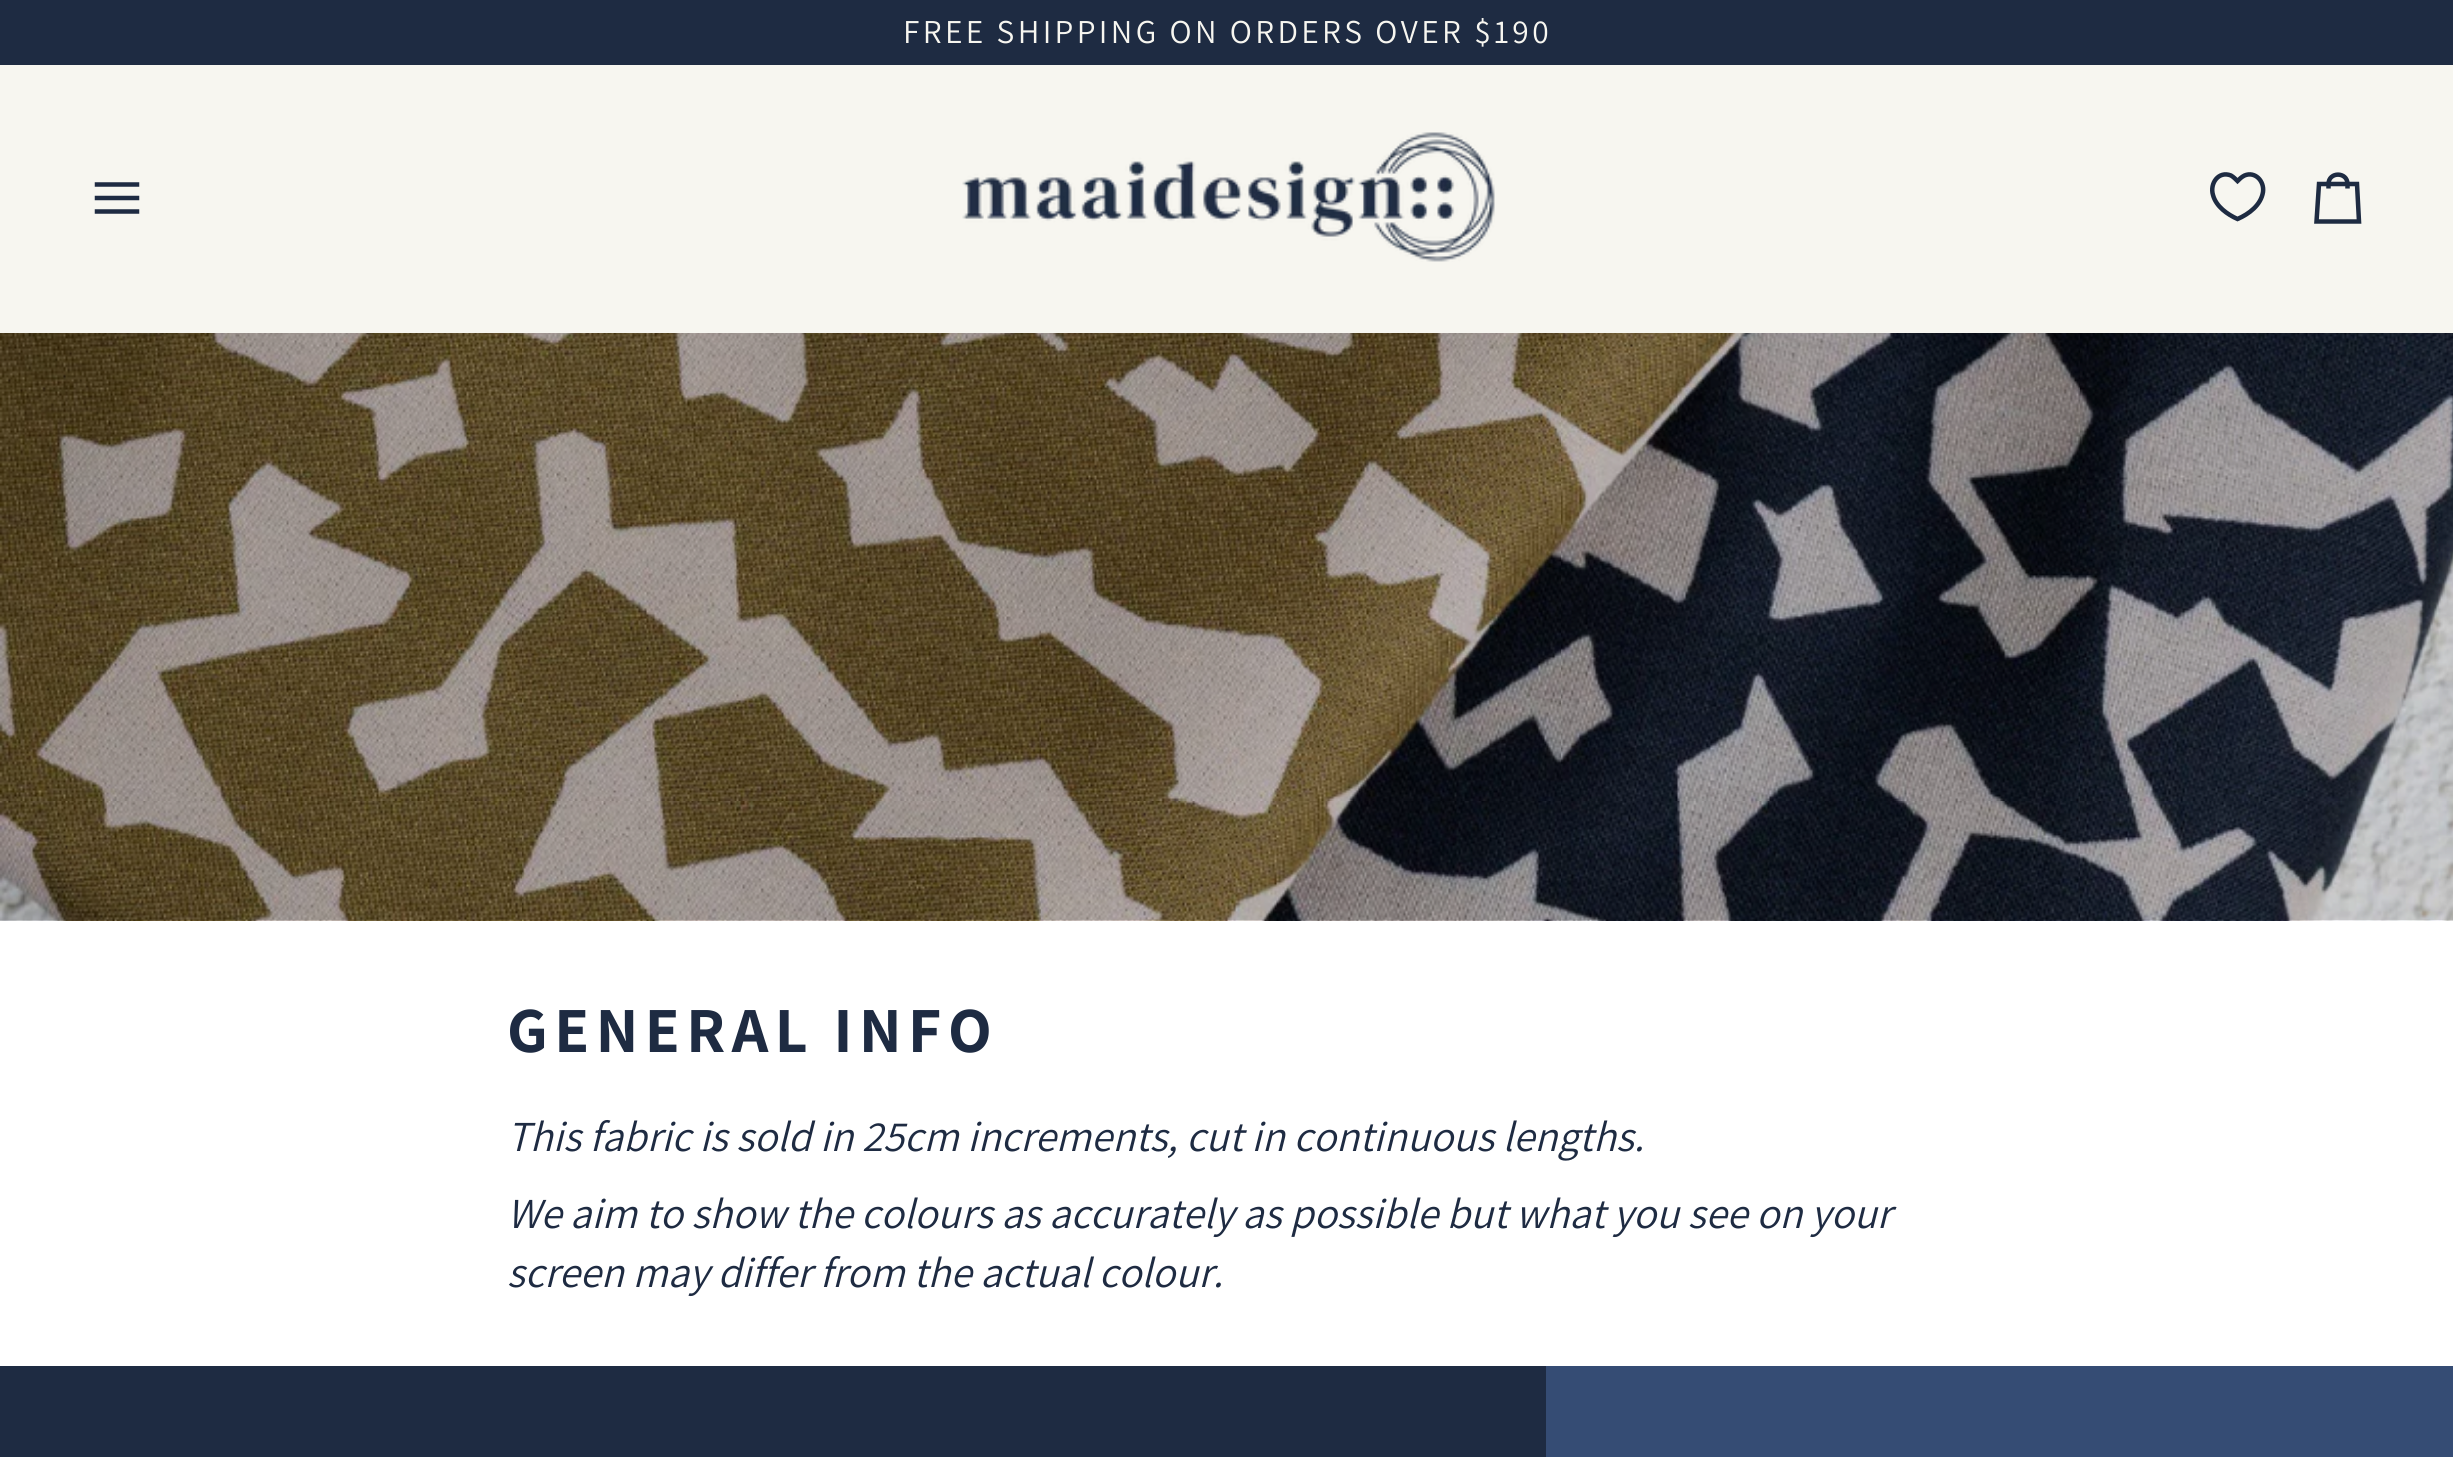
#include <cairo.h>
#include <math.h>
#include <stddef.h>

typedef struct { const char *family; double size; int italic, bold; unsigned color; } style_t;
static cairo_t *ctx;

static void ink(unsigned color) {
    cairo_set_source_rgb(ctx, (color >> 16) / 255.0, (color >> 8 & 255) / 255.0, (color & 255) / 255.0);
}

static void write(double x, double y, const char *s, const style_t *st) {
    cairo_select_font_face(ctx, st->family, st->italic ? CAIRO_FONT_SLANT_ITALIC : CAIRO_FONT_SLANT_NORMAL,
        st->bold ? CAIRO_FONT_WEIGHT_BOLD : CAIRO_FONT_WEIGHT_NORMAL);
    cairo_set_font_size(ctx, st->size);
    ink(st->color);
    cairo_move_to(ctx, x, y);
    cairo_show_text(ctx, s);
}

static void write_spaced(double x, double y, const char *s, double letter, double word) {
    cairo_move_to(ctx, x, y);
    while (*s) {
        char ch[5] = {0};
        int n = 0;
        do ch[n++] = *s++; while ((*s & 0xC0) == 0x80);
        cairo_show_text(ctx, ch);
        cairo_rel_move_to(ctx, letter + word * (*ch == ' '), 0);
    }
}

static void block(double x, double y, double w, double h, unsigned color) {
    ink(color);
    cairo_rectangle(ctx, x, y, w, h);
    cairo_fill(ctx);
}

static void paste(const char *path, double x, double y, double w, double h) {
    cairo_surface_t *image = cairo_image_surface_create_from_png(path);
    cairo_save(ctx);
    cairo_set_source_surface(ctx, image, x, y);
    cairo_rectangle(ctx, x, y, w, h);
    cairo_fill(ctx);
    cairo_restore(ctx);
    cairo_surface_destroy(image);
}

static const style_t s1 = {"Assistant ExtraLight", 42.75, 1, 0, 0x1e2b42};

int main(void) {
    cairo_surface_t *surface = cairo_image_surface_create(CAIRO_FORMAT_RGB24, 2453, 1457);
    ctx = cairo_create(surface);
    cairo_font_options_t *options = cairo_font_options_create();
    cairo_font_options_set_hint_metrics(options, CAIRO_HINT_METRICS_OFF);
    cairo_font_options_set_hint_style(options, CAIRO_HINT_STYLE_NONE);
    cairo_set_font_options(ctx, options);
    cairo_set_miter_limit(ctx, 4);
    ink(0xffffff);
    cairo_paint(ctx);
    block(0, 0, 2453, 65, 0x1e2b42);
    cairo_select_font_face(ctx, "Assistant ExtraLight", CAIRO_FONT_SLANT_NORMAL, CAIRO_FONT_WEIGHT_NORMAL);
    cairo_set_font_size(ctx, 33.4);
    ink(0xf7f6f0);
    write_spaced(903, 43, "FREE SHIPPING ON ORDERS OVER $190", 3.35, 0);
    block(0, 65, 2453, 268, 0xf7f6f0);
    cairo_new_path(ctx);
    cairo_move_to(ctx, 137, 184.5);
    cairo_line_to(ctx, 97, 184.5);
    cairo_move_to(ctx, 137, 198);
    cairo_line_to(ctx, 97, 198);
    cairo_move_to(ctx, 137, 211.5);
    cairo_line_to(ctx, 97, 211.5);
    ink(0x1e2b42);
    cairo_set_line_width(ctx, 4.5);
    cairo_set_line_cap(ctx, CAIRO_LINE_CAP_SQUARE);
    cairo_stroke(ctx);
    paste("pic1.png", 962, 132, 533, 130);
    cairo_new_path(ctx);
    cairo_move_to(ctx, 2237.5, 219);
    cairo_curve_to(ctx, 2227.5, 214.5, 2216, 206.5, 2213, 195);
    cairo_curve_to(ctx, 2209.5, 183.5, 2218.5, 170.5, 2231, 175.5);
    cairo_curve_to(ctx, 2233.5, 177, 2235.5, 179, 2237.5, 181);
    cairo_curve_to(ctx, 2239.5, 179, 2241.5, 177, 2244.5, 175.5);
    cairo_curve_to(ctx, 2255, 171, 2264.5, 181, 2263, 192);
    cairo_curve_to(ctx, 2261, 205, 2249, 214, 2237.5, 219);
    cairo_close_path(ctx);
    cairo_set_line_cap(ctx, CAIRO_LINE_CAP_BUTT);
    cairo_stroke(ctx);
    cairo_new_path(ctx);
    cairo_move_to(ctx, 2347.5, 188.5);
    cairo_line_to(ctx, 2347.5, 184);
    cairo_line_to(ctx, 2357, 184);
    cairo_line_to(ctx, 2359, 221.5);
    cairo_line_to(ctx, 2316.5, 221.5);
    cairo_line_to(ctx, 2319, 184);
    cairo_line_to(ctx, 2328.5, 184);
    cairo_curve_to(ctx, 2328.5, 171.5, 2347.5, 171.5, 2347.5, 184);
    cairo_line_to(ctx, 2328.5, 184);
    cairo_line_to(ctx, 2328.5, 188.5);
    cairo_stroke(ctx);
    paste("pic2.png", 0, 333, 2453, 588);
    cairo_select_font_face(ctx, "Assistant", CAIRO_FONT_SLANT_NORMAL, CAIRO_FONT_WEIGHT_BOLD);
    cairo_set_font_size(ctx, 64.25);
    write_spaced(507, 1052, "GENERAL INFO", 6.5, 0);
    write(507, 1151, "This fabric is sold in 25cm increments, cut in continuous lengths.", &s1);
    write(507, 1228, "We aim to show the colours as accurately as possible but what you see on your", &s1);
    write(507, 1287, "screen may differ from the actual colour.", &s1);
    block(0, 1366, 1546, 91, 0x1e2b42);
    block(1546, 1366, 907, 91, 0x354c74);
    cairo_surface_write_to_png(surface, "screenshot.png");
    cairo_font_options_destroy(options);
    cairo_destroy(ctx);
    cairo_surface_destroy(surface);
    return 0;
}
